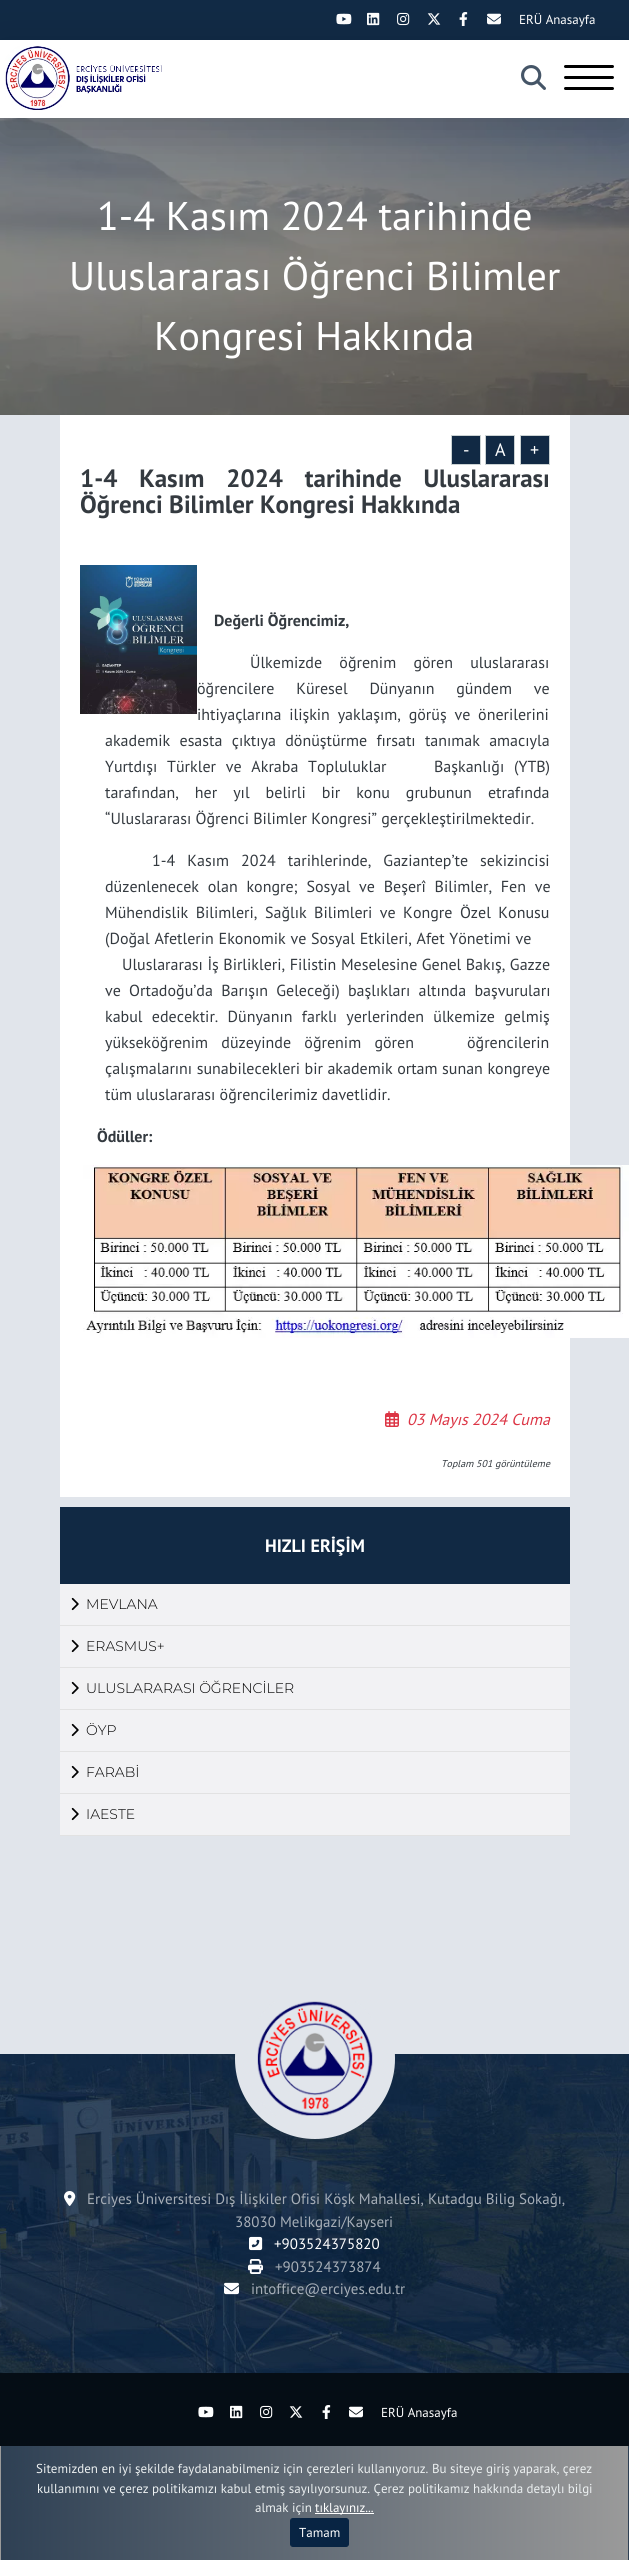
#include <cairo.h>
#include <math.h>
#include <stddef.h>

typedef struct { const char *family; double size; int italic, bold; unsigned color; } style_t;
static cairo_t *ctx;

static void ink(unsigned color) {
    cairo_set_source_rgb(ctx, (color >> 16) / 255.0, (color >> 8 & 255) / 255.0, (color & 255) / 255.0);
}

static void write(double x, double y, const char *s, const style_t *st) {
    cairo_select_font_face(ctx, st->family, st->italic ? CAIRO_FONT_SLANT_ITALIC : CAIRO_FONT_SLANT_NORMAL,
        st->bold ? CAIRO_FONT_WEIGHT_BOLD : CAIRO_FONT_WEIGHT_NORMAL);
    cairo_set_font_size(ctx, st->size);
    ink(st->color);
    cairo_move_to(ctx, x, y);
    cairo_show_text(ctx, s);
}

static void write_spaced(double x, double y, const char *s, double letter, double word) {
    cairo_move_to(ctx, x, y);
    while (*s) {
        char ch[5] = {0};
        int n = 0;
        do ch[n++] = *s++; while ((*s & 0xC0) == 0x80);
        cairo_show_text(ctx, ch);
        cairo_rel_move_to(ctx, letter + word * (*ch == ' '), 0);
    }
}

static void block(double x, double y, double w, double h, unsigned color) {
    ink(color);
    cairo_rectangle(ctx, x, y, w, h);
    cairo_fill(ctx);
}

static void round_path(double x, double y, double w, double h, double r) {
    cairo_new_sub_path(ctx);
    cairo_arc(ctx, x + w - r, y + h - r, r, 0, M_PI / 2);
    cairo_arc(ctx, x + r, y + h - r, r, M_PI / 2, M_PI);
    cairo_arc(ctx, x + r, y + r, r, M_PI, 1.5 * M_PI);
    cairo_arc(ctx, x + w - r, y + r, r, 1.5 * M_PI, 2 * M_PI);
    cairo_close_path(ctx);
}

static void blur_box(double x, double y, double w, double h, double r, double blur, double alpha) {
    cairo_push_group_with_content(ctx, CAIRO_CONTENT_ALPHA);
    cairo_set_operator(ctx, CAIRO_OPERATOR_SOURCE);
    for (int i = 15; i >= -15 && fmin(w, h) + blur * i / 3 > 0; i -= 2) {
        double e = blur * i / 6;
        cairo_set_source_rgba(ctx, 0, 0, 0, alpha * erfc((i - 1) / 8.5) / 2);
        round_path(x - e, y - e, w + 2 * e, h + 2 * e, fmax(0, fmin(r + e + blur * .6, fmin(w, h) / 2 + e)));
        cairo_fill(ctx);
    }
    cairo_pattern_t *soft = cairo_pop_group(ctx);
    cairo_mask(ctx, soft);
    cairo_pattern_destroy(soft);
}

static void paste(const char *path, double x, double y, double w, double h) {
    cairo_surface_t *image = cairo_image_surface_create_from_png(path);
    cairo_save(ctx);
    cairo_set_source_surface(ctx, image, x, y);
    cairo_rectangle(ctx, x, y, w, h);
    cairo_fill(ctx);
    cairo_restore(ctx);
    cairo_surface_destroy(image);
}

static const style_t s1 = {"PT Sans", 13, 0, 0, 0xffffff};
static const style_t s2 = {"PT Sans", 40, 0, 0, 0xffffff};
static const style_t s3 = {"PT Sans", 18, 0, 0, 0xffffff};
static const style_t s4 = {"PT Sans", 25, 0, 1, 0x343a40};
static const style_t s5 = {"PT Sans", 16, 0, 1, 0x343a40};
static const style_t s6 = {"PT Sans", 16, 0, 0, 0x343a40};
static const style_t s7 = {"PT Sans", 16, 1, 0, 0xdc3545};
static const style_t s8 = {"PT Sans", 10, 1, 0, 0x343a40};
static const style_t s9 = {"PT Sans", 18, 0, 1, 0xffffff};
static const style_t s10 = {"Montserrat Light", 14, 0, 0, 0x000000};
static const style_t s11 = {"PT Sans", 15, 0, 0, 0xa6aeb7};
static const style_t s12 = {"PT Sans", 15, 0, 0, 0xffffff};
static const style_t s13 = {"PT Sans", 13, 0, 0, 0xecf0f1};

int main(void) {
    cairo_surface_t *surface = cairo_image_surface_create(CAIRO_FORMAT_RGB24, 629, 2560);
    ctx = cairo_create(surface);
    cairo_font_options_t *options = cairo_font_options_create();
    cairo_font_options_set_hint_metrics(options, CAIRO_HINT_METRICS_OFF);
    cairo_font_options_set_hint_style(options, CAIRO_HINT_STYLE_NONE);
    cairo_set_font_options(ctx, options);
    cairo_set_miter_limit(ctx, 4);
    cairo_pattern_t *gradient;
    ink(0xe1e5eb);
    cairo_paint(ctx);
    block(0, 0, 629, 40, 0x112a45);
    paste("pic3.png", 336, 13, 16, 12);
    paste("pic4.png", 367, 12, 13, 14);
    paste("pic5.png", 397, 12, 13, 14);
    paste("pic6.png", 427, 13, 14, 12);
    paste("pic7.png", 459, 12, 9, 14);
    paste("pic8.png", 487, 13, 14, 12);
    paste("pic9.png", 0, 118, 629, 297);
    ink(0x000000);
    blur_box(0, 56, 629, 78, 0, 24, 0.18);
    block(0, 40, 629, 78, 0xffffff);
    paste("pic1.png", 4, 46, 158, 64);
    paste("pic2.png", 521, 65, 25, 25);
    ink(0x000000);
    round_path(564, 65, 50, 3, 1.5);
    cairo_fill(ctx);
    round_path(564, 76, 50, 3, 1.5);
    cairo_fill(ctx);
    round_path(564, 87, 50, 3, 1.5);
    cairo_fill(ctx);
    write(519, 24, "ERÜ Anasayfa", &s1);
    write(97, 230, "1-4 Kasım 2024 tarihinde", &s2);
    write(69, 290, "Uluslararası Öğrenci Bilimler", &s2);
    write(154, 350, "Kongresi Hakkında", &s2);
    block(60, 415, 510, 1082, 0xffffff);
    ink(0x112944);
    cairo_rectangle(ctx, 451.5, 435.5, 29, 29);
    cairo_fill_preserve(ctx);
    ink(0xcbd2d3);
    cairo_set_line_width(ctx, 1);
    cairo_stroke(ctx);
    write(463, 456, "-", &s3);
    ink(0x112944);
    cairo_rectangle(ctx, 485.5, 435.5, 29, 29);
    cairo_fill_preserve(ctx);
    ink(0xcbd2d3);
    cairo_stroke(ctx);
    write(495, 456, "A", &s3);
    ink(0x112944);
    cairo_rectangle(ctx, 520.5, 435.5, 29, 29);
    cairo_fill_preserve(ctx);
    ink(0xcbd2d3);
    cairo_stroke(ctx);
    write(530, 456, "+", &s3);
    cairo_select_font_face(ctx, "PT Sans", CAIRO_FONT_SLANT_NORMAL, CAIRO_FONT_WEIGHT_BOLD);
    cairo_set_font_size(ctx, 25);
    ink(0x343a40);
    write_spaced(80, 487, "1-4 Kasım 2024 tarihinde Uluslararası", 0, 15.5);
    write(80, 513, "Öğrenci Bilimler Kongresi Hakkında", &s4);
    paste("pic10.png", 80, 565, 117, 149);
    write(214, 626, "Değerli Öğrencimiz,", &s5);
    cairo_select_font_face(ctx, "PT Sans", CAIRO_FONT_SLANT_NORMAL, CAIRO_FONT_WEIGHT_NORMAL);
    write_spaced(250, 668, "Ülkemizde öğrenim gören uluslararası", 0, 13);
    write_spaced(197, 694, "öğrencilere Küresel Dünyanın gündem ve", 0, 17.5);
    write_spaced(197, 720, "ihtiyaçlarına ilişkin yaklaşım, görüş ve önerilerini", 0, 3.5);
    write_spaced(105, 746, "akademik esasta çıktıya dönüştürme fırsatı tanımak amacıyla", 0, 5);
    write_spaced(105, 772, "Yurtdışı Türkler ve Akraba Topluluklar", 0, 5.5);
    write_spaced(434, 772, "Başkanlığı (YTB)", 0, 5.5);
    write_spaced(105, 798, "tarafından, her yıl belirli bir konu grubunun etrafında", 0, 11.75);
    write(105, 824, "“Uluslararası Öğrenci Bilimler Kongresi” gerçekleştirilmektedir.", &s6);
    write_spaced(152, 866, "1-4 Kasım 2024 tarihlerinde, Gaziantep’te sekizincisi", 0, 7.75);
    write_spaced(105, 892, "düzenlenecek olan kongre; Sosyal ve Beşerî Bilimler, Fen ve", 0, 4.5);
    write_spaced(105, 918, "Mühendislik Bilimleri, Sağlık Bilimleri ve Kongre Özel Konusu", 0, 3.25);
    write_spaced(105, 944, "(Doğal Afetlerin Ekonomik ve Sosyal Etkileri, Afet Yönetimi ve", 0, 0.5);
    write_spaced(122, 970, "Uluslararası İş Birlikleri, Filistin Meselesine Genel Bakış, Gazze", 0, 0.25);
    write_spaced(105, 996, "ve Ortadoğu’da Barışın Geleceği) başlıkları altında başvuruları", 0, 4);
    write_spaced(105, 1022, "kabul edecektir. Dünyanın farklı yerlerinden ülkemize gelmiş", 0, 5);
    write_spaced(105, 1048, "yükseköğrenim düzeyinde öğrenim gören", 0, 9);
    write(467, 1048, "öğrencilerin", &s6);
    write_spaced(105, 1074, "çalışmalarını sunabilecekleri bir akademik ortam sunan kongreye", 0, 0.25);
    write(105, 1100, "tüm uluslararası öğrencilerimiz davetlidir.", &s6);
    write(97, 1142, "Ödüller:", &s5);
    paste("pic11.png", 83, 1165, 546, 173);
    paste("pic12.png", 385, 1411, 14, 16);
    write(407, 1425, "03 Mayıs 2024 Cuma", &s7);
    write(441, 1467, "Toplam 501 görüntüleme", &s8);
    block(60, 1507, 510, 77, 0x112944);
    write(265, 1552, "HIZLI ERİŞİM", &s9);
    block(60, 1584, 510, 251, 0xf2f2f4);
    block(60, 1625, 510, 1, 0xe2e2e2);
    paste("pic13.png", 71, 1597, 8, 14);
    write(86, 1609, "MEVLANA", &s10);
    block(60, 1667, 510, 1, 0xe2e2e2);
    paste("pic13.png", 71, 1639, 8, 14);
    write(86, 1651, "ERASMUS+", &s10);
    block(60, 1709, 510, 1, 0xe2e2e2);
    paste("pic13.png", 71, 1681, 8, 14);
    write(86, 1693, "ULUSLARARASI ÖĞRENCİLER", &s10);
    block(60, 1751, 510, 1, 0xe2e2e2);
    paste("pic13.png", 71, 1723, 8, 14);
    write(86, 1735, "ÖYP", &s10);
    block(60, 1793, 510, 1, 0xe2e2e2);
    paste("pic13.png", 71, 1765, 8, 14);
    write(86, 1777, "FARABİ", &s10);
    block(60, 1835, 510, 1, 0xe2e2e2);
    paste("pic13.png", 71, 1807, 8, 14);
    write(86, 1819, "IAESTE", &s10);
    paste("pic14.png", 0, 2054, 629, 319);
    ink(0xe1e5eb);
    round_path(235, 1978, 160, 161, 80);
    cairo_fill(ctx);
    paste("pic15.png", 257, 2001, 116, 115);
    paste("pic16.png", 64, 2191, 12, 15);
    write(87, 2204, "Erciyes Üniversitesi Dış İlişkiler Ofisi Köşk Mahallesi, Kutadgu Bilig Sokağı,", &s11);
    write(235, 2227, "38030 Melikgazi/Kayseri", &s11);
    paste("pic17.png", 249, 2236, 14, 15);
    write(274, 2249, "+903524375820", &s12);
    paste("pic18.png", 248, 2259, 15, 15);
    write(275, 2272, "+903524373874", &s11);
    paste("pic19.png", 224, 2282, 15, 13);
    write(251, 2294, "intoffice@erciyes.edu.tr", &s11);
    block(0, 2373, 629, 73, 0x050d15);
    paste("pic20.png", 198, 2406, 16, 12);
    paste("pic21.png", 230, 2405, 13, 14);
    paste("pic22.png", 260, 2405, 13, 14);
    paste("pic23.png", 289, 2406, 14, 12);
    paste("pic24.png", 322, 2405, 9, 14);
    paste("pic25.png", 349, 2406, 14, 12);
    write(381, 2417, "ERÜ Anasayfa", &s1);
    gradient = cairo_pattern_create_linear(-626, 2503, 1, 2503);
    cairo_pattern_add_color_stop_rgba(gradient, 0, 0.18, 0.251, 0.329, 1);
    cairo_pattern_add_color_stop_rgba(gradient, 1, 0.604, 0.604, 0.604, 1);
    cairo_set_source(ctx, gradient);
    cairo_pattern_destroy(gradient);
    cairo_rectangle(ctx, 0, 2446, 1, 114);
    cairo_fill(ctx);
    gradient = cairo_pattern_create_linear(1, 2503, 628, 2503);
    cairo_pattern_add_color_stop_rgba(gradient, 0, 0.18, 0.251, 0.329, 1);
    cairo_pattern_add_color_stop_rgba(gradient, 1, 0.604, 0.604, 0.604, 1);
    cairo_set_source(ctx, gradient);
    cairo_pattern_destroy(gradient);
    cairo_rectangle(ctx, 1, 2446, 627, 114);
    cairo_fill(ctx);
    gradient = cairo_pattern_create_linear(628, 2503, 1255, 2503);
    cairo_pattern_add_color_stop_rgba(gradient, 0, 0.18, 0.251, 0.329, 1);
    cairo_pattern_add_color_stop_rgba(gradient, 1, 0.604, 0.604, 0.604, 1);
    cairo_set_source(ctx, gradient);
    cairo_pattern_destroy(gradient);
    cairo_rectangle(ctx, 628, 2446, 1, 114);
    cairo_fill(ctx);
    write(36, 2473, "Sitemizden en iyi şekilde faydalanabilmeniz için çerezleri kullanıyoruz. Bu siteye giriş yaparak, çerez", &s13);
    write(37, 2493, "kullanımını ve çerez politikamızı kabul etmiş sayılıyorsunuz. Çerez politikamız hakkında detaylı bilgi", &s13);
    write(255, 2512, "almak için", &s13);
    block(315, 2513, 59, 1, 0xffffff);
    write(315, 2512, "tıklayınız...", &s1);
    ink(0x082443);
    round_path(290.5, 2518.5, 58, 28, 2.5);
    cairo_fill_preserve(ctx);
    cairo_stroke(ctx);
    write(299, 2537, "Tamam", &s1);
    cairo_surface_write_to_png(surface, "screenshot.png");
    cairo_font_options_destroy(options);
    cairo_destroy(ctx);
    cairo_surface_destroy(surface);
    return 0;
}
